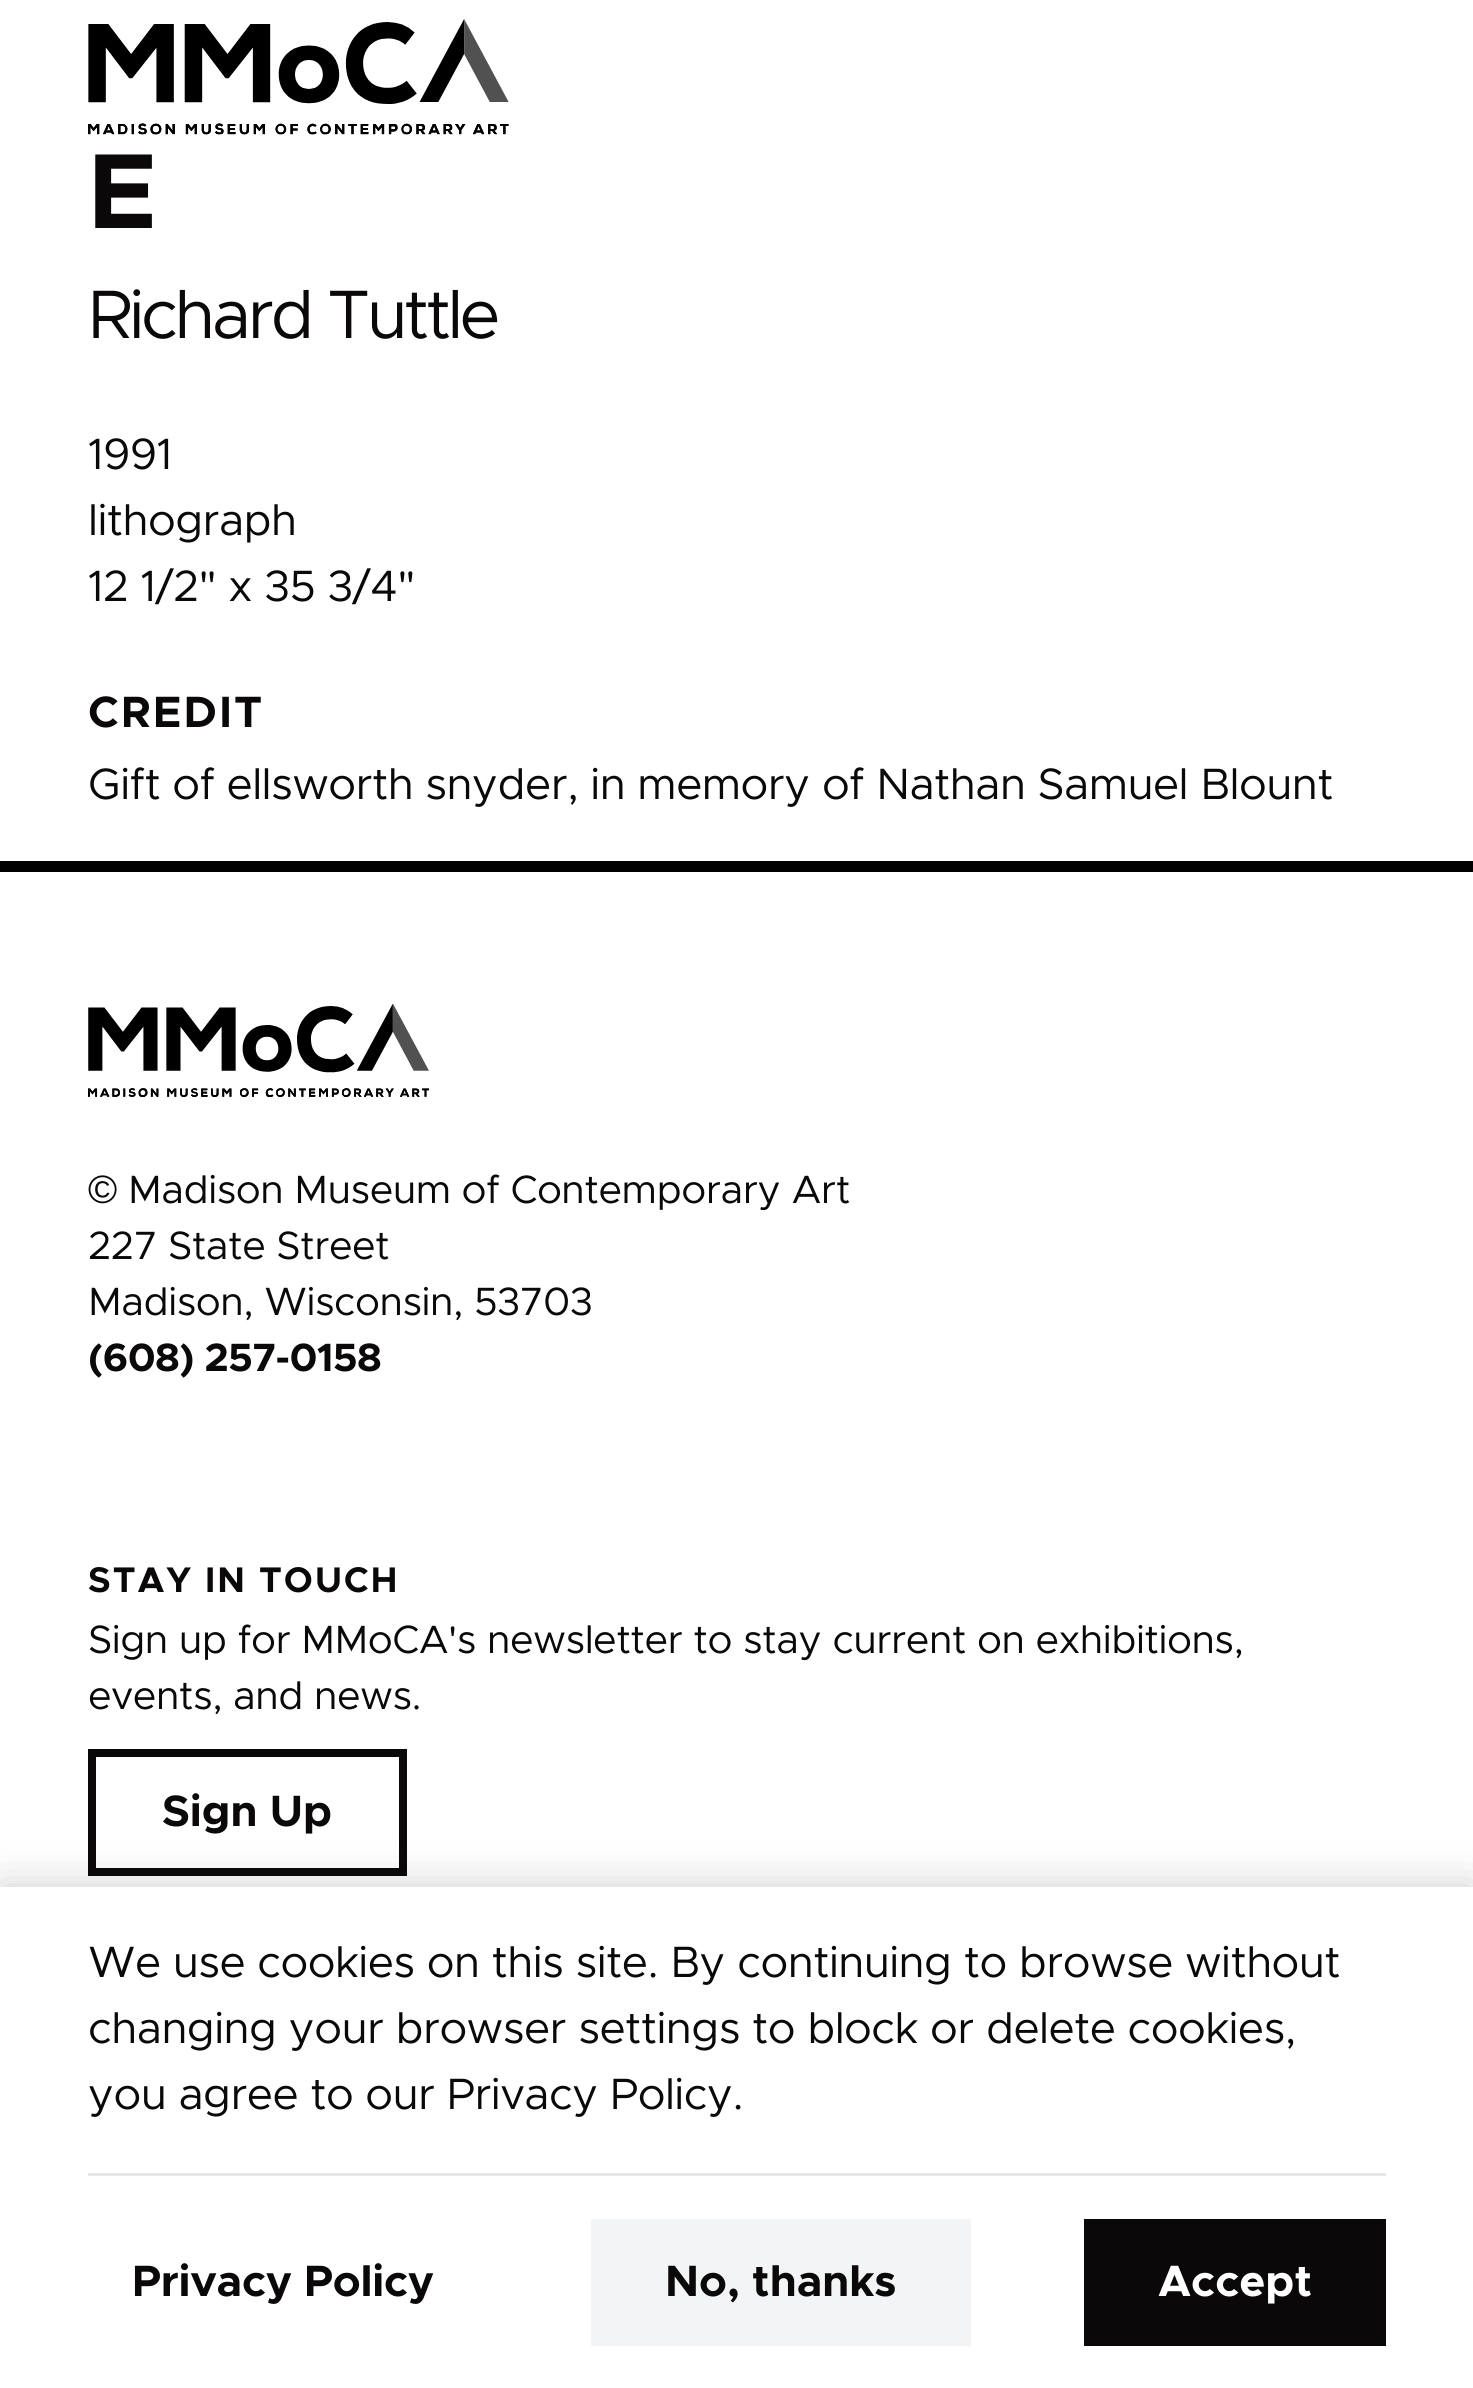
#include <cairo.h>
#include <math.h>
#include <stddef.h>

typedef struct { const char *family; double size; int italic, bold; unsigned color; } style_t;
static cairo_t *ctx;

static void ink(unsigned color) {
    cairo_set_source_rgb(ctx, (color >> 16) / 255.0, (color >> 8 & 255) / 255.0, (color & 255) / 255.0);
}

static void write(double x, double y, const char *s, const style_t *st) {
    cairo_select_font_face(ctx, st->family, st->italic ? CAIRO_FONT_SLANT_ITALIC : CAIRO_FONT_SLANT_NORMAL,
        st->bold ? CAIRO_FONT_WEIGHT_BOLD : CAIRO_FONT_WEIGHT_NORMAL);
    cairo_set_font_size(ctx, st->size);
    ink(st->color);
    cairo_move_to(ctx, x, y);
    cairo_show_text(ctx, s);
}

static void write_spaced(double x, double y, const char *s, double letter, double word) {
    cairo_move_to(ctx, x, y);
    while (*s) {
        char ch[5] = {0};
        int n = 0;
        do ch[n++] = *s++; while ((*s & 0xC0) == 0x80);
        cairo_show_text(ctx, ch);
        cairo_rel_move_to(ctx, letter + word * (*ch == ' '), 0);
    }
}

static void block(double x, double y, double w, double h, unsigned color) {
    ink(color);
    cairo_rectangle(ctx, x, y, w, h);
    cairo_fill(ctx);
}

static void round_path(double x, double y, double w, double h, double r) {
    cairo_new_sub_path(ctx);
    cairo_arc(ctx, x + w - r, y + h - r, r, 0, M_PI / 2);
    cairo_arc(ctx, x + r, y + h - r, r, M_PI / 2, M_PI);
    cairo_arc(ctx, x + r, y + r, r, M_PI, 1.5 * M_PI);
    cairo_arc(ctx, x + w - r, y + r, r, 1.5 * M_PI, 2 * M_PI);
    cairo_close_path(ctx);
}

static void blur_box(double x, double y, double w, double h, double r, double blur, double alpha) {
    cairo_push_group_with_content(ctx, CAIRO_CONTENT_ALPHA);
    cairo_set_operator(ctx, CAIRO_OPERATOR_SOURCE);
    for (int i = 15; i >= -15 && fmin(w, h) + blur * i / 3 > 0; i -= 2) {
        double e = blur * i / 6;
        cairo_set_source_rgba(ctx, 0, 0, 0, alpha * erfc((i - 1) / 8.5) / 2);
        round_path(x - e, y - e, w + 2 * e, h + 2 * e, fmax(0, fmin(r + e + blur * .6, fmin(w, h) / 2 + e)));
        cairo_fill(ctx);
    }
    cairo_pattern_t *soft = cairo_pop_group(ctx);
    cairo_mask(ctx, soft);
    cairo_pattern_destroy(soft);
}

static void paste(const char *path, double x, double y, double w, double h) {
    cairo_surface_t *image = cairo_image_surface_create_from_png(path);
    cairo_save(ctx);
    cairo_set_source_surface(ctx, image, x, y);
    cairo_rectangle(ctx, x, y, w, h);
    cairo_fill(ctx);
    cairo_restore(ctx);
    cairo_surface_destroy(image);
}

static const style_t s1 = {"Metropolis", 44, 0, 1, 0x0a0808};
static const style_t s2 = {"Metropolis", 44, 0, 1, 0xffffff};

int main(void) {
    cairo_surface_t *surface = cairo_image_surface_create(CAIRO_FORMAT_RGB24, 1473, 2388);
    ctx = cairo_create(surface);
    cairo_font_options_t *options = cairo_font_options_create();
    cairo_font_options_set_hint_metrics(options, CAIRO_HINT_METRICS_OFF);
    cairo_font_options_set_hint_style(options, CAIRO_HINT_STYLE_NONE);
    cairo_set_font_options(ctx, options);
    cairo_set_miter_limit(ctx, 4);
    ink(0xffffff);
    cairo_paint(ctx);
    paste("pic1.png", 88, 19, 421, 116);
    cairo_select_font_face(ctx, "Metropolis", CAIRO_FONT_SLANT_NORMAL, CAIRO_FONT_WEIGHT_BOLD);
    cairo_set_font_size(ctx, 107);
    ink(0x0a0808);
    write_spaced(88, 228, "E", -6, 0);
    cairo_select_font_face(ctx, "Metropolis", CAIRO_FONT_SLANT_NORMAL, CAIRO_FONT_WEIGHT_NORMAL);
    cairo_set_font_size(ctx, 68.75);
    write_spaced(88, 338, "Richard Tuttle", -3.6, 0);
    cairo_set_font_size(ctx, 44);
    write_spaced(88, 469, "1991", -0.57, 0);
    write_spaced(88, 535, "lithograph", -0.57, 0);
    write_spaced(88, 601, "12 1/2\" x 35 3/4\"", -0.57, 0);
    cairo_select_font_face(ctx, "Metropolis", CAIRO_FONT_SLANT_NORMAL, CAIRO_FONT_WEIGHT_BOLD);
    write_spaced(88, 727, "CREDIT", 2.25, 0);
    cairo_select_font_face(ctx, "Metropolis", CAIRO_FONT_SLANT_NORMAL, CAIRO_FONT_WEIGHT_NORMAL);
    write_spaced(88, 799, "Gift of ellsworth snyder, in memory of Nathan Samuel Blount", -0.57, 0);
    block(0, 861, 1473, 11, 0x000000);
    paste("pic2.png", 88, 1004, 341, 93);
    cairo_select_font_face(ctx, "Liberation Sans", CAIRO_FONT_SLANT_NORMAL, CAIRO_FONT_WEIGHT_NORMAL);
    cairo_set_font_size(ctx, 39.6);
    ink(0x0a0808);
    write_spaced(88, 1203, "©", -0.5, 0);
    cairo_select_font_face(ctx, "Metropolis", CAIRO_FONT_SLANT_NORMAL, CAIRO_FONT_WEIGHT_NORMAL);
    write_spaced(128, 1203, "Madison Museum of Contemporary Art", -0.5, 0);
    write_spaced(88, 1259, "227 State Street", -0.5, 0);
    write_spaced(88, 1315, "Madison, Wisconsin, 53703", -0.5, 0);
    cairo_select_font_face(ctx, "Metropolis", CAIRO_FONT_SLANT_NORMAL, CAIRO_FONT_WEIGHT_BOLD);
    write_spaced(88, 1371, "(608) 257-0158", -0.5, 0);
    cairo_set_font_size(ctx, 35.75);
    write_spaced(88, 1592, "STAY IN TOUCH", 2, 0);
    cairo_select_font_face(ctx, "Metropolis", CAIRO_FONT_SLANT_NORMAL, CAIRO_FONT_WEIGHT_NORMAL);
    cairo_set_font_size(ctx, 39.6);
    write_spaced(88, 1653, "Sign up for MMoCA's newsletter to stay current on exhibitions,", -0.5, 0);
    write_spaced(88, 1709, "events, and news.", -0.5, 0);
    cairo_rectangle(ctx, 92, 1753, 311, 119);
    cairo_set_line_width(ctx, 8);
    cairo_stroke(ctx);
    write(162, 1826, "Sign Up", &s1);
    ink(0x000000);
    blur_box(0, 1887, 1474, 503, 0, 22, 0.2);
    block(0, 1887, 1473, 501, 0xffffff);
    cairo_select_font_face(ctx, "Metropolis", CAIRO_FONT_SLANT_NORMAL, CAIRO_FONT_WEIGHT_NORMAL);
    ink(0x0a0808);
    write_spaced(88, 1977, "We use cookies on this site. By continuing to browse without", -0.57, 0);
    write_spaced(88, 2043, "changing your browser settings to block or delete cookies,", -0.57, 0);
    write_spaced(88, 2109, "you agree to our Privacy Policy.", -0.57, 0);
    block(88, 2173, 1298, 3, 0xe6e6e6);
    cairo_select_font_face(ctx, "Metropolis", CAIRO_FONT_SLANT_NORMAL, CAIRO_FONT_WEIGHT_BOLD);
    ink(0x0a0808);
    write_spaced(132, 2296, "Privacy Policy", -0.25, 0);
    block(591, 2219, 380, 127, 0xf3f4f6);
    write(665, 2296, "No, thanks", &s1);
    block(1084, 2219, 302, 127, 0x0a0808);
    write(1158, 2296, "Accept", &s2);
    cairo_surface_write_to_png(surface, "screenshot.png");
    cairo_font_options_destroy(options);
    cairo_destroy(ctx);
    cairo_surface_destroy(surface);
    return 0;
}
